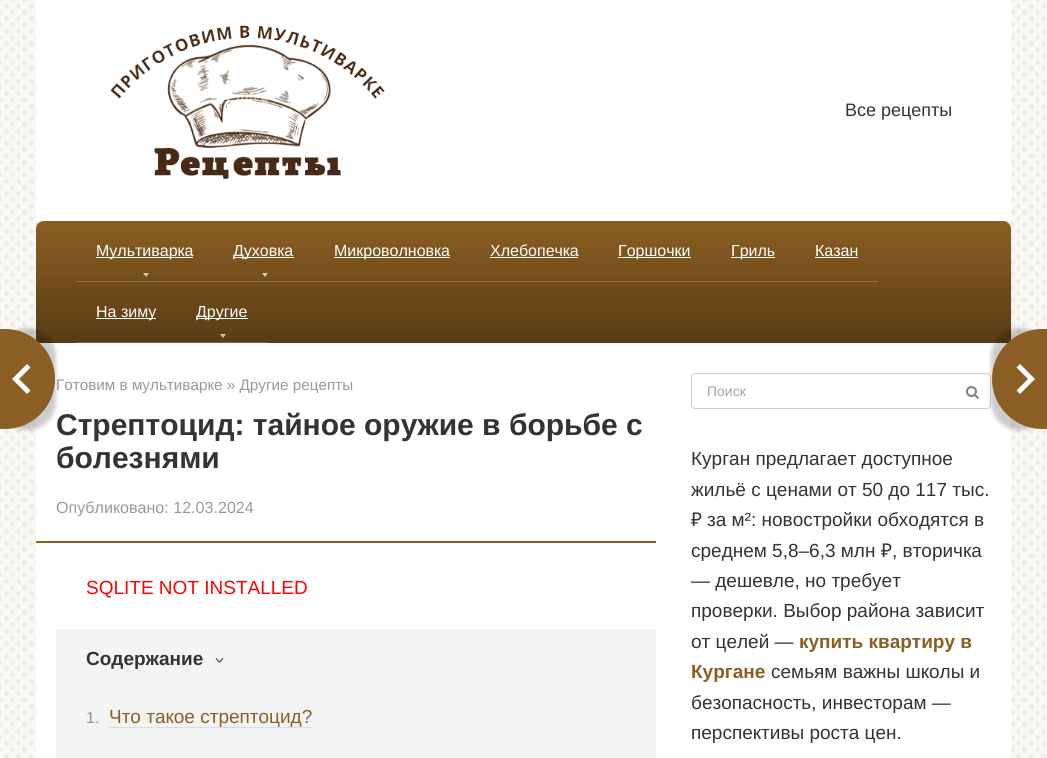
#include <cairo.h>
#include <math.h>
#include <stddef.h>

typedef struct { const char *family; double size; int italic, bold; unsigned color; } style_t;
static cairo_t *ctx;

static void ink(unsigned color) {
    cairo_set_source_rgb(ctx, (color >> 16) / 255.0, (color >> 8 & 255) / 255.0, (color & 255) / 255.0);
}

static void write(double x, double y, const char *s, const style_t *st) {
    cairo_select_font_face(ctx, st->family, st->italic ? CAIRO_FONT_SLANT_ITALIC : CAIRO_FONT_SLANT_NORMAL,
        st->bold ? CAIRO_FONT_WEIGHT_BOLD : CAIRO_FONT_WEIGHT_NORMAL);
    cairo_set_font_size(ctx, st->size);
    ink(st->color);
    cairo_move_to(ctx, x, y);
    cairo_show_text(ctx, s);
}

static void block(double x, double y, double w, double h, unsigned color) {
    ink(color);
    cairo_rectangle(ctx, x, y, w, h);
    cairo_fill(ctx);
}

static void round_path(double x, double y, double w, double h, double r) {
    cairo_new_sub_path(ctx);
    cairo_arc(ctx, x + w - r, y + h - r, r, 0, M_PI / 2);
    cairo_arc(ctx, x + r, y + h - r, r, M_PI / 2, M_PI);
    cairo_arc(ctx, x + r, y + r, r, M_PI, 1.5 * M_PI);
    cairo_arc(ctx, x + w - r, y + r, r, 1.5 * M_PI, 2 * M_PI);
    cairo_close_path(ctx);
}

static void blur_box(double x, double y, double w, double h, double r, double blur, double alpha) {
    cairo_push_group_with_content(ctx, CAIRO_CONTENT_ALPHA);
    cairo_set_operator(ctx, CAIRO_OPERATOR_SOURCE);
    for (int i = 15; i >= -15 && fmin(w, h) + blur * i / 3 > 0; i -= 2) {
        double e = blur * i / 6;
        cairo_set_source_rgba(ctx, 0, 0, 0, alpha * erfc((i - 1) / 8.5) / 2);
        round_path(x - e, y - e, w + 2 * e, h + 2 * e, fmax(0, fmin(r + e + blur * .6, fmin(w, h) / 2 + e)));
        cairo_fill(ctx);
    }
    cairo_pattern_t *soft = cairo_pop_group(ctx);
    cairo_mask(ctx, soft);
    cairo_pattern_destroy(soft);
}

static void paste(const char *path, double x, double y, double w, double h) {
    cairo_surface_t *image = cairo_image_surface_create_from_png(path);
    cairo_save(ctx);
    cairo_set_source_surface(ctx, image, x, y);
    cairo_rectangle(ctx, x, y, w, h);
    cairo_fill(ctx);
    cairo_restore(ctx);
    cairo_surface_destroy(image);
}

static const style_t s1 = {"Liberation Sans", 18, 0, 0, 0x333333};
static const style_t s2 = {"Liberation Sans", 16, 0, 0, 0xffffff};
static const style_t s3 = {"Liberation Sans", 15.25, 0, 0, 0x999999};
static const style_t s4 = {"Liberation Sans", 30, 0, 1, 0x333333};
static const style_t s5 = {"Liberation Sans", 16.1, 0, 0, 0x999999};
static const style_t s6 = {"Liberation Sans", 19, 0, 0, 0xff0000};
static const style_t s7 = {"Liberation Sans", 19, 0, 1, 0x333333};
static const style_t s8 = {"Liberation Sans", 16, 0, 0, 0x939494};
static const style_t s9 = {"Liberation Sans", 19, 0, 0, 0x8b5e23};
static const style_t s10 = {"Liberation Sans", 14, 0, 0, 0xa3a3a3};
static const style_t s11 = {"Liberation Sans", 19, 0, 0, 0x333333};
static const style_t s12 = {"Noto Sans", 19, 0, 0, 0x333333};
static const style_t s13 = {"Liberation Sans", 19, 0, 1, 0x8b5e23};

int main(void) {
    cairo_surface_t *surface = cairo_image_surface_create(CAIRO_FORMAT_RGB24, 1047, 758);
    ctx = cairo_create(surface);
    cairo_font_options_t *options = cairo_font_options_create();
    cairo_font_options_set_hint_metrics(options, CAIRO_HINT_METRICS_OFF);
    cairo_font_options_set_hint_style(options, CAIRO_HINT_STYLE_NONE);
    cairo_set_font_options(ctx, options);
    cairo_set_miter_limit(ctx, 4);
    cairo_pattern_t *gradient;
    ink(0xf9f8f5);
    cairo_paint(ctx);
    paste("pic1.png", 0, 0, 1046, 758);
    block(36, 0, 975, 221, 0xffffff);
    paste("pic2.png", 110, 25, 275, 154);
    write(845, 116, "Все рецепты", &s1);
    gradient = cairo_pattern_create_linear(524, 221, 524, 343);
    cairo_pattern_add_color_stop_rgba(gradient, 0, 0.545, 0.369, 0.137, 1);
    cairo_pattern_add_color_stop_rgba(gradient, 1, 0.349, 0.235, 0.082, 1);
    cairo_set_source(ctx, gradient);
    cairo_pattern_destroy(gradient);
    cairo_new_path(ctx);
    cairo_move_to(ctx, 44, 221);
    cairo_line_to(ctx, 1003, 221);
    cairo_curve_to(ctx, 1007.5, 221, 1011, 224.5, 1011, 229);
    cairo_line_to(ctx, 1011, 343);
    cairo_line_to(ctx, 36, 343);
    cairo_line_to(ctx, 36, 229);
    cairo_curve_to(ctx, 36, 224.5, 39.5, 221, 44, 221);
    cairo_close_path(ctx);
    cairo_fill(ctx);
    block(76, 281, 802, 1, 0x8e7149);
    block(96, 257, 97, 1, 0xffffff);
    write(96, 256, "Мультиварка", &s2);
    ink(0xd6cabb);
    cairo_new_path(ctx);
    cairo_move_to(ctx, 143, 273);
    cairo_line_to(ctx, 149, 273);
    cairo_line_to(ctx, 146, 277);
    cairo_close_path(ctx);
    cairo_fill(ctx);
    block(233, 257, 61, 1, 0xffffff);
    write(233, 256, "Духовка", &s2);
    ink(0xd6cabb);
    cairo_new_path(ctx);
    cairo_move_to(ctx, 262, 273);
    cairo_line_to(ctx, 268, 273);
    cairo_line_to(ctx, 265, 277);
    cairo_close_path(ctx);
    cairo_fill(ctx);
    block(334, 257, 116, 1, 0xffffff);
    write(334, 256, "Микроволновка", &s2);
    write(490, 256, "Хлебопечка", &s2);
    block(490, 257, 88, 1, 0xffffff);
    block(618, 257, 73, 1, 0xffffff);
    write(618, 256, "Горшочки", &s2);
    block(731, 257, 44, 1, 0xffffff);
    write(731, 256, "Гриль", &s2);
    write(815, 256, "Казан", &s2);
    block(815, 257, 43, 1, 0xffffff);
    block(76, 342, 192, 1, 0x7a6344);
    block(96, 318, 60, 1, 0xffffff);
    write(96, 317, "На зиму", &s2);
    block(196, 318, 52, 1, 0xffffff);
    write(196, 317, "Другие", &s2);
    ink(0xcec5b9);
    cairo_new_path(ctx);
    cairo_move_to(ctx, 220, 334);
    cairo_line_to(ctx, 226, 334);
    cairo_line_to(ctx, 223, 338);
    cairo_close_path(ctx);
    cairo_fill(ctx);
    block(36, 343, 975, 415, 0xffffff);
    write(56, 390, "Готовим в мультиварке » Другие рецепты", &s3);
    write(56, 435, "Стрептоцид: тайное оружие в борьбе с", &s4);
    write(56, 468, "болезнями", &s4);
    write(56, 513, "Опубликовано: 12.03.2024", &s5);
    block(36, 541, 620, 2, 0x8b5e23);
    ink(0x000000);
    blur_box(-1, 328, 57, 102, 51, 2, 0.2);
    ink(0x8b5e23);
    cairo_new_path(ctx);
    cairo_move_to(ctx, 0, 329);
    cairo_line_to(ctx, 5, 329);
    cairo_curve_to(ctx, 32.5, 329, 55, 351.5, 55, 379);
    cairo_curve_to(ctx, 55, 406.5, 32.5, 429, 5, 429);
    cairo_line_to(ctx, 0, 429);
    cairo_close_path(ctx);
    cairo_fill(ctx);
    ink(0xffffff);
    cairo_set_fill_rule(ctx, CAIRO_FILL_RULE_EVEN_ODD);
    cairo_new_path(ctx);
    cairo_move_to(ctx, 30.5, 367.5);
    cairo_line_to(ctx, 27, 364);
    cairo_line_to(ctx, 12, 379);
    cairo_line_to(ctx, 27, 394);
    cairo_line_to(ctx, 30.5, 390.5);
    cairo_line_to(ctx, 19, 379);
    cairo_close_path(ctx);
    cairo_fill(ctx);
    round_path(691.5, 373.5, 299, 35, 3.5);
    ink(0xcccccc);
    cairo_set_line_width(ctx, 1);
    cairo_stroke(ctx);
    ink(0x000000);
    blur_box(991, 328, 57, 102, 51, 2, 0.2);
    ink(0x8b5e23);
    cairo_new_path(ctx);
    cairo_move_to(ctx, 1042, 329);
    cairo_line_to(ctx, 1047, 329);
    cairo_line_to(ctx, 1047, 429);
    cairo_line_to(ctx, 1042, 429);
    cairo_curve_to(ctx, 1014.5, 429, 992, 406.5, 992, 379);
    cairo_curve_to(ctx, 992, 351.5, 1014.5, 329, 1042, 329);
    cairo_close_path(ctx);
    cairo_fill(ctx);
    ink(0xffffff);
    cairo_new_path(ctx);
    cairo_move_to(ctx, 1016.5, 367.5);
    cairo_line_to(ctx, 1020, 364);
    cairo_line_to(ctx, 1035, 379);
    cairo_line_to(ctx, 1020, 394);
    cairo_line_to(ctx, 1016.5, 390.5);
    cairo_line_to(ctx, 1028, 379);
    cairo_close_path(ctx);
    cairo_fill(ctx);
    write(86, 594, "SQLITE NOT INSTALLED", &s6);
    block(56, 629, 600, 129, 0xf3f4f4);
    write(86, 665, "Содержание", &s7);
    paste("pic3.png", 215, 658, 9, 5);
    write(86, 723, "1.", &s8);
    write(109, 723, "Что такое стрептоцид?", &s9);
    block(109, 727, 203, 1, 0xdbdcdc);
    write(707, 396, "Поиск", &s10);
    paste("pic4.png", 966, 386, 13, 13);
    write(691, 465, "Курган предлагает доступное", &s11);
    write(691, 496, "жильё с ценами от 50 до 117 тыс.", &s11);
    write(691, 526, "₽", &s12);
    write(707, 526, "за м²: новостройки обходятся в", &s11);
    write(691, 557, "среднем 5,8–6,3 млн", &s11);
    write(881, 557, "₽", &s12);
    write(892, 557, ", вторичка", &s11);
    write(691, 587, "— дешевле, но требует", &s11);
    write(691, 617, "проверки. Выбор района зависит", &s11);
    write(691, 648, "от целей —", &s11);
    write(799, 648, "купить квартиру в", &s13);
    write(691, 678, "Кургане", &s13);
    write(771, 678, "семьям важны школы и", &s11);
    write(691, 709, "безопасность, инвесторам —", &s11);
    write(691, 739, "перспективы роста цен.", &s11);
    cairo_surface_write_to_png(surface, "screenshot.png");
    cairo_font_options_destroy(options);
    cairo_destroy(ctx);
    cairo_surface_destroy(surface);
    return 0;
}
